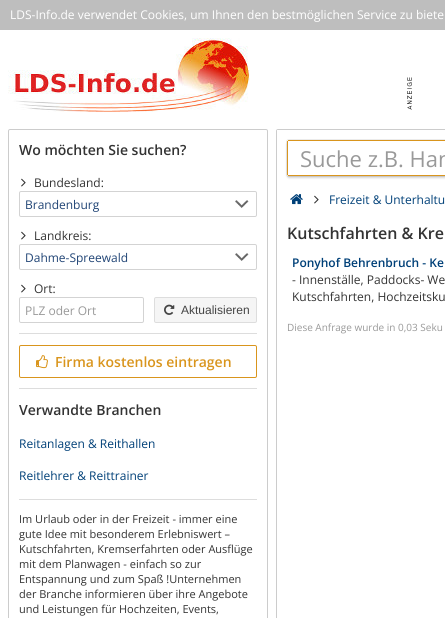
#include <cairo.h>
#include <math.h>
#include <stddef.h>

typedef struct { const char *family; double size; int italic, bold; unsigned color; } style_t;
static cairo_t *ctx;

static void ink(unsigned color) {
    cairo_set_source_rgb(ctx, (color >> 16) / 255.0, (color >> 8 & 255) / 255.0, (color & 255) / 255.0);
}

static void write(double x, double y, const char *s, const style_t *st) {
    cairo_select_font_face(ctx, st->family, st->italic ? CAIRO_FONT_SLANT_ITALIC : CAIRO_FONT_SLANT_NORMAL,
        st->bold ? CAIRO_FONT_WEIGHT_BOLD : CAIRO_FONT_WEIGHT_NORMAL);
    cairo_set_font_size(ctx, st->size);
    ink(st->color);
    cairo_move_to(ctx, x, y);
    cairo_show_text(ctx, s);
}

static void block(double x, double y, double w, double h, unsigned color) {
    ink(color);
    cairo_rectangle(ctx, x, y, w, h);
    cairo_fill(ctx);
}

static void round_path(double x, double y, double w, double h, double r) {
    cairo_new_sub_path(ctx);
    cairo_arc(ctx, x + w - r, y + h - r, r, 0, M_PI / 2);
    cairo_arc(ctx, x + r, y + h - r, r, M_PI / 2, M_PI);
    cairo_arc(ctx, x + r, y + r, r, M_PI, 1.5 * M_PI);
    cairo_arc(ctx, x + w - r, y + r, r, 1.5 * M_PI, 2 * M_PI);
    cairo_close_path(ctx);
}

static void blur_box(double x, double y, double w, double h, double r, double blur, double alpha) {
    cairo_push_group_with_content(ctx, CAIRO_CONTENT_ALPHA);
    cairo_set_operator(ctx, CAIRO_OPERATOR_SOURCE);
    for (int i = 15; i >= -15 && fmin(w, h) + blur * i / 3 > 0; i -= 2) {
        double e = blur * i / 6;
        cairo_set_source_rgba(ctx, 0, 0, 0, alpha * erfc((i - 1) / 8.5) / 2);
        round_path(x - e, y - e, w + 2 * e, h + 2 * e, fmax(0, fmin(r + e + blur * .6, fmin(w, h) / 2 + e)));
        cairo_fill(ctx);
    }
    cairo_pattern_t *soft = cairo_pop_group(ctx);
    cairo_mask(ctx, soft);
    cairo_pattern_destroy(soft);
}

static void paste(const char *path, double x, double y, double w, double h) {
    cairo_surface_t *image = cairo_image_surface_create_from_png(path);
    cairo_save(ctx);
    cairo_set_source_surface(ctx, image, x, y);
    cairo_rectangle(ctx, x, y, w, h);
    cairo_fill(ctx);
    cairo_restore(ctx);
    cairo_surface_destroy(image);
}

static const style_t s1 = {"Open Sans", 12, 0, 0, 0xffffff};
static const style_t s2 = {"Open Sans SemiBold", 14, 0, 0, 0x333333};
static const style_t s3 = {"Open Sans", 12, 0, 0, 0x333333};
static const style_t s4 = {"Open Sans", 12, 0, 0, 0x204475};
static const style_t s5 = {"Open Sans", 12, 0, 0, 0x999999};
static const style_t s6 = {"Liberation Sans", 12, 0, 0, 0x444444};
static const style_t s7 = {"Open Sans SemiBold", 14, 0, 0, 0xd9951d};
static const style_t s8 = {"Open Sans", 12, 0, 0, 0x004078};
static const style_t s9 = {"Open Sans", 11, 0, 0, 0x333333};
static const style_t s10 = {"Open Sans", 22, 0, 0, 0x999999};
static const style_t s11 = {"Open Sans SemiBold", 16, 0, 0, 0x333333};
static const style_t s12 = {"Open Sans SemiBold", 12, 0, 0, 0x004078};
static const style_t s13 = {"Open Sans", 10, 0, 0, 0x999999};

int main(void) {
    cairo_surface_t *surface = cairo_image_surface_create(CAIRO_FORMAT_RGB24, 445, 618);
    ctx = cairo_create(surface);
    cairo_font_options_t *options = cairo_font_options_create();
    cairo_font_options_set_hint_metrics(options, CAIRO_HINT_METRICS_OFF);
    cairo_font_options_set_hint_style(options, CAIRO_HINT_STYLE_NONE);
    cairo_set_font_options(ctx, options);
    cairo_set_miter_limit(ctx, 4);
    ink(0xffffff);
    cairo_paint(ctx);
    block(0, 0, 445, 30, 0xbebebe);
    write(10, 19, "LDS-Info.de verwendet Cookies, um Ihnen den bestmöglichen Service zu biete", &s1);
    paste("pic1.png", 8, 38, 242, 74);
    paste("pic2.png", 407, 77, 5, 33);
    round_path(8.5, 129.5, 259, 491, 1.5);
    ink(0xcccccc);
    cairo_set_line_width(ctx, 1);
    cairo_stroke(ctx);
    write(19, 155, "Wo möchten Sie suchen?", &s2);
    paste("pic3.png", 21, 178, 5, 9);
    write(34, 187, "Bundesland:", &s3);
    paste("pic4.png", 235, 200, 14, 8);
    round_path(19.5, 191.5, 237, 25, 1.5);
    ink(0xd3d3d3);
    cairo_stroke(ctx);
    write(25, 209, "Brandenburg", &s4);
    paste("pic3.png", 21, 231, 5, 9);
    write(34, 240, "Landkreis:", &s3);
    paste("pic4.png", 235, 253, 14, 8);
    round_path(19.5, 244.5, 237, 25, 1.5);
    ink(0xd3d3d3);
    cairo_stroke(ctx);
    write(25, 262, "Dahme-Spreewald", &s4);
    paste("pic3.png", 21, 284, 5, 9);
    write(34, 293, "Ort:", &s3);
    round_path(19.5, 297.5, 124, 25, 1.5);
    ink(0xd3d3d3);
    cairo_stroke(ctx);
    write(25, 315, "PLZ oder Ort", &s5);
    ink(0xf5f5f5);
    round_path(154.5, 297.5, 102, 25, 1.5);
    cairo_fill_preserve(ctx);
    ink(0xdddddd);
    cairo_stroke(ctx);
    paste("pic5.png", 164, 304, 11, 11);
    write(181, 314, "Aktualisieren", &s6);
    block(19, 333, 238, 1, 0xdddddd);
    round_path(19.5, 345.5, 237, 32, 1.5);
    ink(0xd9951d);
    cairo_stroke(ctx);
    paste("pic6.png", 36, 355, 12, 14);
    write(55, 367, "Firma kostenlos eintragen", &s7);
    block(19, 388, 238, 1, 0xdddddd);
    write(19, 415, "Verwandte Branchen", &s2);
    write(19, 448, "Reitanlagen & Reithallen", &s8);
    write(19, 480, "Reitlehrer & Reittrainer", &s8);
    block(19, 499, 238, 1, 0xdddddd);
    write(19, 523, "Im Urlaub oder in der Freizeit - immer eine", &s9);
    write(19, 538, "gute Idee mit besonderem Erlebniswert –", &s9);
    write(19, 553, "Kutschfahrten, Kremserfahrten oder Ausflüge", &s9);
    write(19, 568, "mit dem Planwagen - einfach so zur", &s9);
    write(19, 583, "Entspannung und zum Spaß !Unternehmen", &s9);
    write(19, 598, "der Branche informieren über ihre Angebote", &s9);
    write(19, 613, "und Leistungen für Hochzeiten, Events,", &s9);
    round_path(276.5, 129.5, 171, 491, 1.5);
    ink(0xcccccc);
    cairo_stroke(ctx);
    block(277, 130, 1, 1, 0xffffff);
    cairo_new_path(ctx);
    cairo_move_to(ctx, 289, 139.5);
    cairo_line_to(ctx, 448.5, 139.5);
    cairo_line_to(ctx, 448.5, 176.5);
    cairo_line_to(ctx, 289, 176.5);
    cairo_curve_to(ctx, 287.5, 176.5, 286.5, 175.5, 286.5, 174);
    cairo_line_to(ctx, 286.5, 142);
    cairo_curve_to(ctx, 286.5, 140.5, 287.5, 139.5, 289, 139.5);
    cairo_close_path(ctx);
    ink(0xebebeb);
    cairo_stroke(ctx);
    cairo_save(ctx);
    cairo_set_fill_rule(ctx, CAIRO_FILL_RULE_EVEN_ODD);
    cairo_new_path(ctx);
    cairo_move_to(ctx, 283, 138);
    cairo_line_to(ctx, 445, 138);
    cairo_line_to(ctx, 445, 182);
    cairo_line_to(ctx, 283, 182);
    cairo_close_path(ctx);
    cairo_move_to(ctx, 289, 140);
    cairo_line_to(ctx, 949, 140);
    cairo_line_to(ctx, 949, 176);
    cairo_line_to(ctx, 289, 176);
    cairo_curve_to(ctx, 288, 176, 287, 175, 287, 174);
    cairo_line_to(ctx, 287, 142);
    cairo_curve_to(ctx, 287, 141, 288, 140, 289, 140);
    cairo_close_path(ctx);
    cairo_clip(ctx);
    ink(0x000000);
    blur_box(287, 142, 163, 36, 2, 1, 0.16);
    cairo_restore(ctx);
    block(288, 140, 157, 1, 0xd9951d);
    block(288, 175, 157, 1, 0xd9951d);
    block(287, 141, 1, 34, 0xd9951d);
    write(300, 167, "Suche z.B. Han", &s10);
    paste("pic7.png", 290, 194, 13, 11);
    paste("pic3.png", 314, 195, 5, 9);
    write(329, 204, "Freizeit & Unterhaltu", &s8);
    write(287, 239, "Kutschfahrten & Kre", &s11);
    write(292, 267, "Ponyhof Behrenbruch - Ke", &s12);
    write(292, 284, "- Innenställe, Paddocks- We", &s3);
    write(292, 301, "Kutschfahrten, Hochzeitsku", &s3);
    write(287, 331, "Diese Anfrage wurde in 0,03 Seku", &s13);
    cairo_surface_write_to_png(surface, "screenshot.png");
    cairo_font_options_destroy(options);
    cairo_destroy(ctx);
    cairo_surface_destroy(surface);
    return 0;
}
